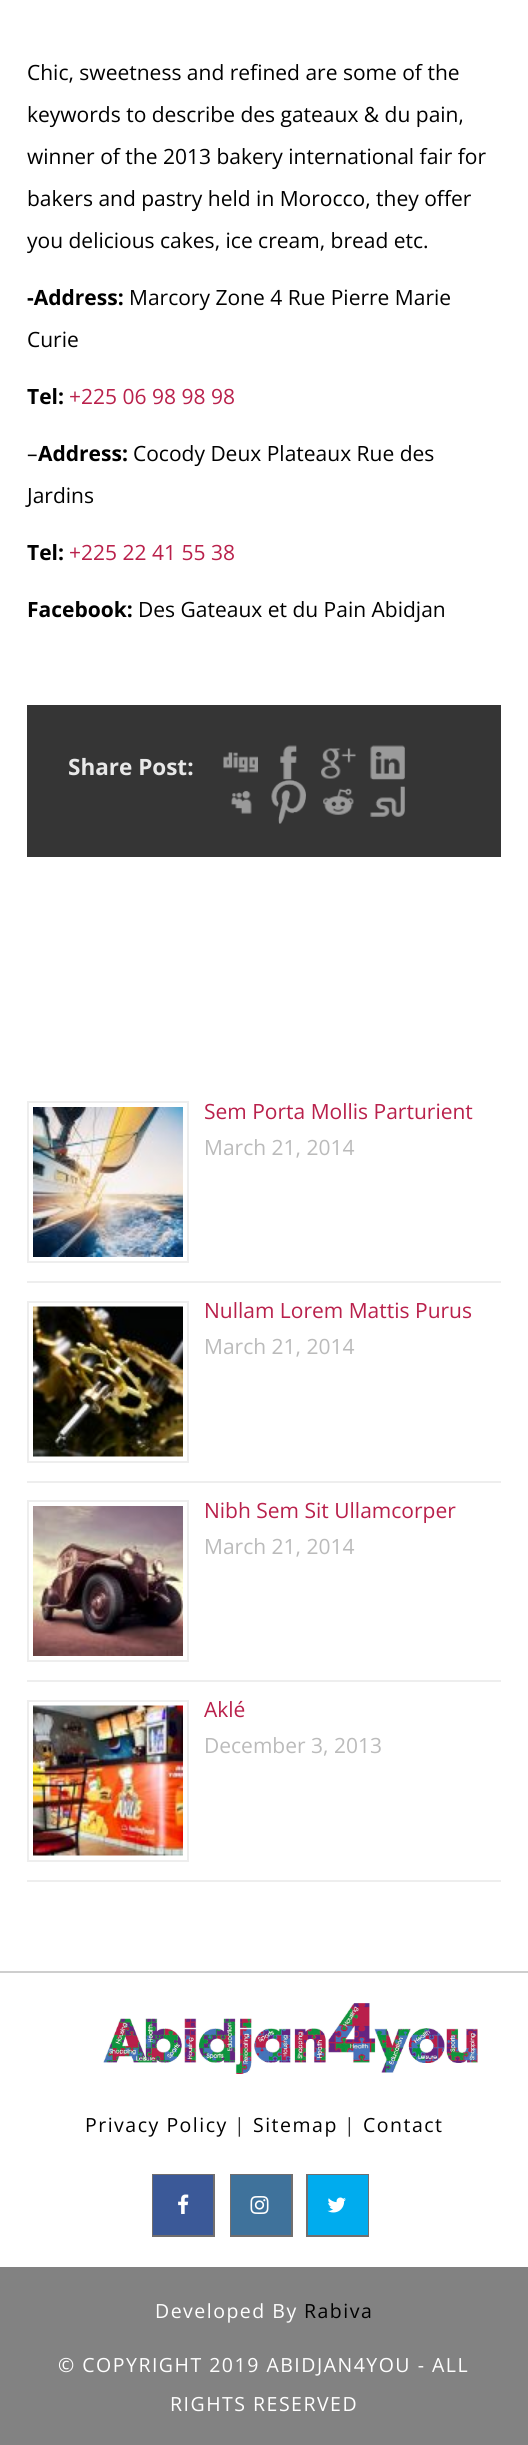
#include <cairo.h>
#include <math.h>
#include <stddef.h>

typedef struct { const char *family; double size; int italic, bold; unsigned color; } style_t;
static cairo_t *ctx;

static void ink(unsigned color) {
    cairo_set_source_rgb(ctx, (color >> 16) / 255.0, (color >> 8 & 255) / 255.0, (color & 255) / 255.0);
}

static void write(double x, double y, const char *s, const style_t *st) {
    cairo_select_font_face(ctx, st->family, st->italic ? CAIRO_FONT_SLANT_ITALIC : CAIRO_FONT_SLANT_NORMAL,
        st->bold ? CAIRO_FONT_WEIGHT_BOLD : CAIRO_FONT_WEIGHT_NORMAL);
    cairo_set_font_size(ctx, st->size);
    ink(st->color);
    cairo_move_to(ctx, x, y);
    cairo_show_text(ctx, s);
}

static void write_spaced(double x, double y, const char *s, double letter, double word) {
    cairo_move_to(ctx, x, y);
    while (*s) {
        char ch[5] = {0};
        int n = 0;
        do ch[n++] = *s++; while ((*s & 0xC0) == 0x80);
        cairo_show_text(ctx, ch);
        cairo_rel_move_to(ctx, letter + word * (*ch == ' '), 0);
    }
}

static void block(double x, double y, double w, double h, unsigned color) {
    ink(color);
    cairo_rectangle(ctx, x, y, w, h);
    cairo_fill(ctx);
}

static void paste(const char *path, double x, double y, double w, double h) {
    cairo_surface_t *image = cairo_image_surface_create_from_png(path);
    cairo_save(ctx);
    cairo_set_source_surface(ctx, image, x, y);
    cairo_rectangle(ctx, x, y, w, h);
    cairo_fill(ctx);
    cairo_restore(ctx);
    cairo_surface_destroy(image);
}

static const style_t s1 = {"Open Sans", 21, 0, 0, 0x000000};
static const style_t s2 = {"Open Sans", 21, 0, 1, 0x000000};
static const style_t s3 = {"Open Sans", 21, 0, 0, 0xb9204b};
static const style_t s4 = {"Open Sans", 22.5, 0, 1, 0xe8e8e8};
static const style_t s5 = {"Open Sans", 21, 0, 0, 0xbbbbbb};

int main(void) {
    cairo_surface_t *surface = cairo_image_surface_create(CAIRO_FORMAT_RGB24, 528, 2445);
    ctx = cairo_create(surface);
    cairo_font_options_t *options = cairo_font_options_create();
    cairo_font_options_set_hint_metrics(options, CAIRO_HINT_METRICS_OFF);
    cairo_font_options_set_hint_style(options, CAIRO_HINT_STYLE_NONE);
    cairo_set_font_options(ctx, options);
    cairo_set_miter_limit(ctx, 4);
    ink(0xffffff);
    cairo_paint(ctx);
    write(27, 80, "Chic, sweetness and refined are some of the", &s1);
    write(27, 122, "keywords to describe des gateaux & du pain,", &s1);
    write(27, 164, "winner of the 2013 bakery international fair for", &s1);
    write(27, 206, "bakers and pastry held in Morocco, they offer", &s1);
    write(27, 248, "you delicious cakes, ice cream, bread etc.", &s1);
    write(27, 305, "-Address:", &s2);
    write(129, 305, "Marcory Zone 4 Rue Pierre Marie", &s1);
    write(27, 347, "Curie", &s1);
    write(27, 404, "Tel:", &s2);
    write(69, 404, "+225 06 98 98 98", &s3);
    write(27, 461, "–", &s1);
    write(38, 461, "Address:", &s2);
    write(133, 461, "Cocody Deux Plateaux Rue des", &s1);
    write(27, 503, "Jardins", &s1);
    write(27, 560, "Tel:", &s2);
    write(69, 560, "+225 22 41 55 38", &s3);
    write(27, 617, "Facebook:", &s2);
    write(138, 617, "Des Gateaux et du Pain Abidjan", &s1);
    block(27, 705, 474, 152, 0x353535);
    write(68, 775, "Share Post:", &s4);
    paste("pic1.png", 223, 752, 35, 21);
    paste("pic2.png", 280, 745, 17, 35);
    paste("pic3.png", 321, 748, 35, 31);
    paste("pic4.png", 370, 745, 35, 35);
    paste("pic5.png", 231, 790, 21, 24);
    paste("pic6.png", 271, 780, 35, 44);
    paste("pic7.png", 323, 788, 31, 27);
    paste("pic8.png", 370, 786, 35, 31);
    block(27, 1281, 474, 2, 0xeeeeee);
    cairo_rectangle(ctx, 28, 1102, 160, 160);
    cairo_stroke(ctx);
    paste("pic9.png", 33, 1107, 150, 150);
    write(204, 1119, "Sem Porta Mollis Parturient", &s3);
    write(204, 1155, "March 21, 2014", &s5);
    block(27, 1481, 474, 2, 0xeeeeee);
    cairo_rectangle(ctx, 28, 1302, 160, 160);
    cairo_stroke(ctx);
    paste("pic10.png", 33, 1306, 150, 151);
    write(204, 1318, "Nullam Lorem Mattis Purus", &s3);
    write(204, 1354, "March 21, 2014", &s5);
    block(27, 1680, 474, 2, 0xeeeeee);
    cairo_rectangle(ctx, 28, 1501, 160, 160);
    cairo_stroke(ctx);
    paste("pic11.png", 33, 1506, 150, 150);
    write(204, 1518, "Nibh Sem Sit Ullamcorper", &s3);
    write(204, 1554, "March 21, 2014", &s5);
    block(27, 1880, 474, 2, 0xeeeeee);
    cairo_rectangle(ctx, 28, 1701, 160, 160);
    cairo_stroke(ctx);
    paste("pic12.png", 33, 1705, 150, 151);
    write(204, 1717, "Aklé", &s3);
    write(204, 1753, "December 3, 2013", &s5);
    block(0, 1971, 528, 2, 0xcecece);
    paste("pic13.png", 103, 2003, 375, 71);
    cairo_set_font_size(ctx, 19.5);
    ink(0x000000);
    write_spaced(85, 2132, "Privacy Policy", 1.5, 0);
    ink(0x333333);
    write_spaced(234, 2132, "|", 1.5, 0);
    ink(0x000000);
    write_spaced(253, 2132, "Sitemap", 1.5, 0);
    ink(0x333333);
    write_spaced(344, 2132, "|", 1.5, 0);
    ink(0x000000);
    write_spaced(363, 2132, "Contact", 1.5, 0);
    cairo_rectangle(ctx, 153, 2175, 61, 61);
    ink(0x716e6e);
    cairo_stroke(ctx);
    block(153, 2175, 60, 60, 0x3b5998);
    paste("pic14.png", 178, 2194, 11, 20);
    cairo_rectangle(ctx, 231, 2175, 61, 61);
    ink(0x716e6e);
    cairo_stroke(ctx);
    block(231, 2175, 60, 60, 0x3f729b);
    paste("pic15.png", 250, 2196, 19, 18);
    cairo_rectangle(ctx, 307, 2175, 61, 61);
    ink(0x716e6e);
    cairo_stroke(ctx);
    block(308, 2175, 60, 60, 0x00acee);
    paste("pic16.png", 327, 2197, 19, 16);
    block(0, 2267, 528, 178, 0x828282);
    ink(0xffffff);
    write_spaced(155, 2318, "Developed By", 1.5, 0);
    ink(0x000000);
    write_spaced(304, 2318, "Rabiva", 1.5, 0);
    ink(0xffffff);
    write_spaced(58, 2372, "© COPYRIGHT 2019 ABIDJAN4YOU - ALL", 1.5, 0);
    write_spaced(170, 2411, "RIGHTS RESERVED", 1.5, 0);
    cairo_surface_write_to_png(surface, "screenshot.png");
    cairo_font_options_destroy(options);
    cairo_destroy(ctx);
    cairo_surface_destroy(surface);
    return 0;
}
